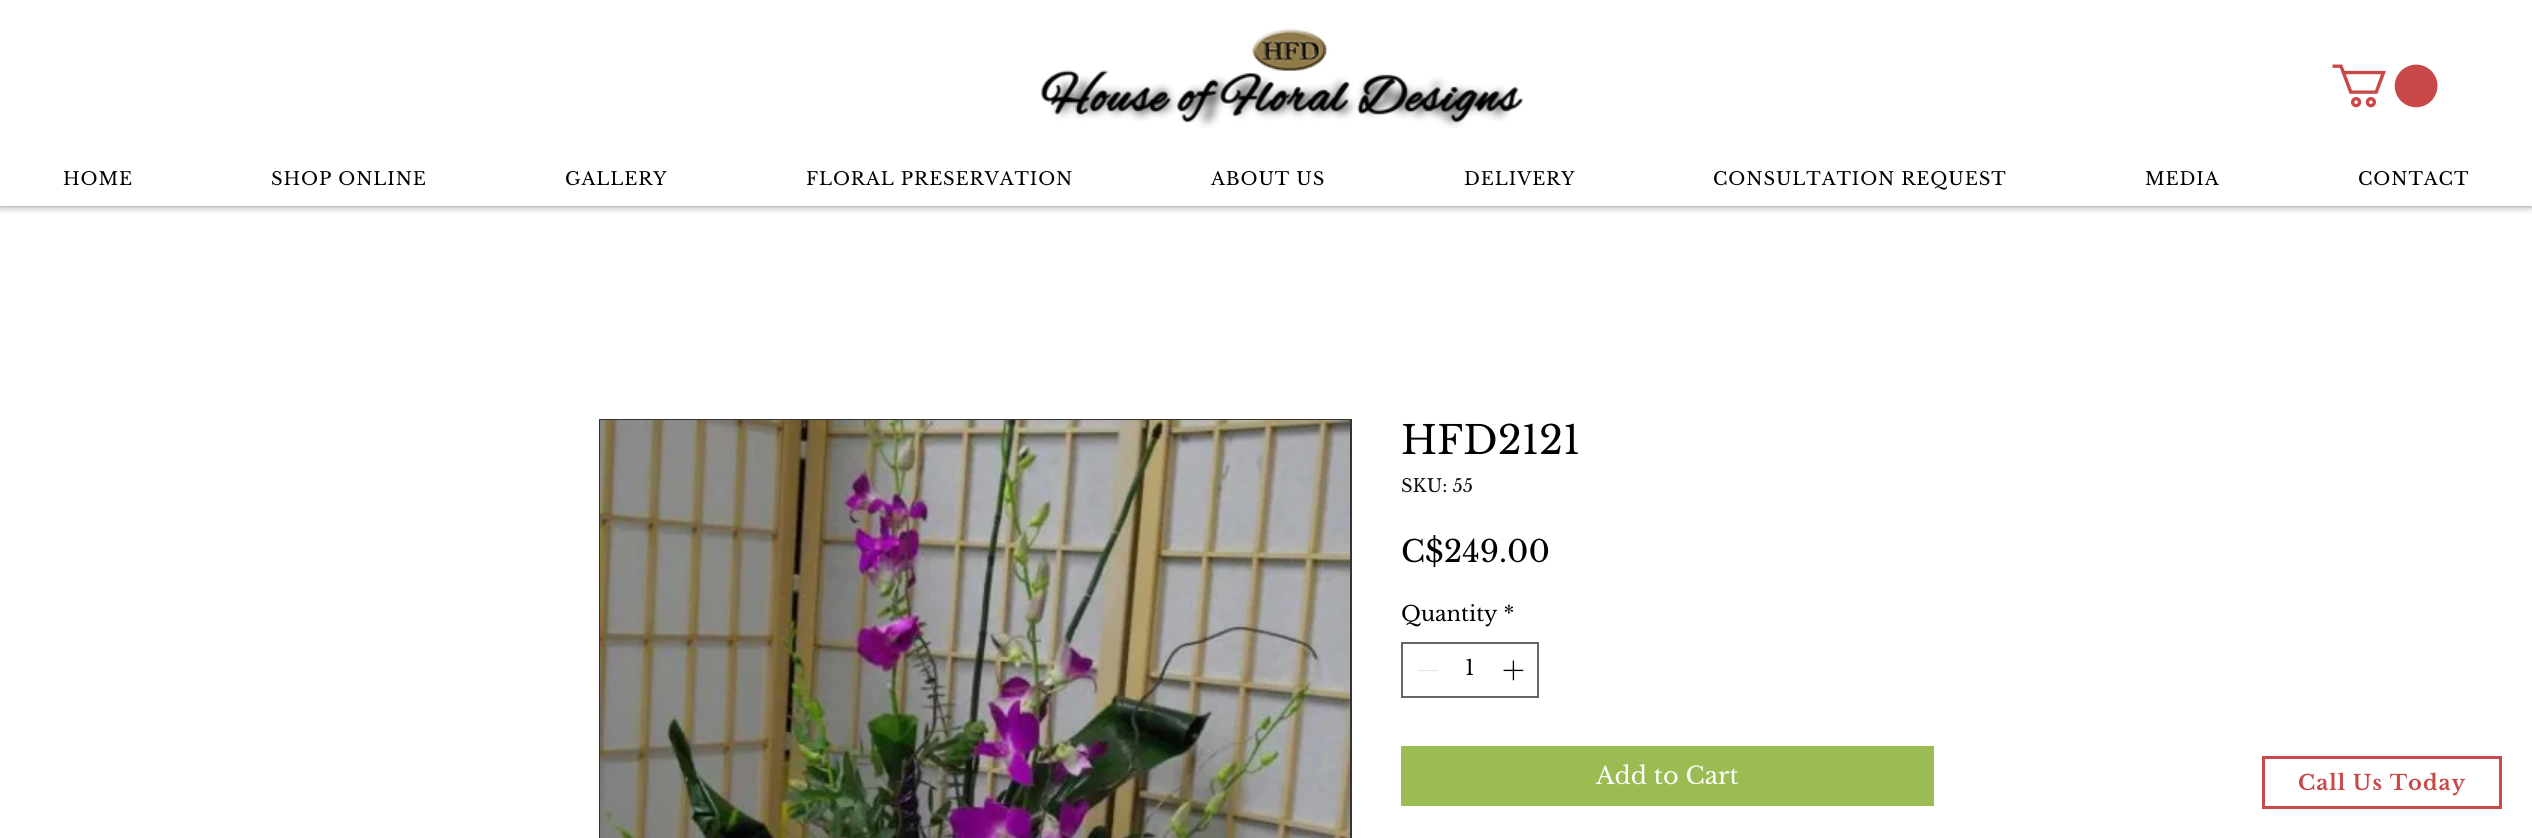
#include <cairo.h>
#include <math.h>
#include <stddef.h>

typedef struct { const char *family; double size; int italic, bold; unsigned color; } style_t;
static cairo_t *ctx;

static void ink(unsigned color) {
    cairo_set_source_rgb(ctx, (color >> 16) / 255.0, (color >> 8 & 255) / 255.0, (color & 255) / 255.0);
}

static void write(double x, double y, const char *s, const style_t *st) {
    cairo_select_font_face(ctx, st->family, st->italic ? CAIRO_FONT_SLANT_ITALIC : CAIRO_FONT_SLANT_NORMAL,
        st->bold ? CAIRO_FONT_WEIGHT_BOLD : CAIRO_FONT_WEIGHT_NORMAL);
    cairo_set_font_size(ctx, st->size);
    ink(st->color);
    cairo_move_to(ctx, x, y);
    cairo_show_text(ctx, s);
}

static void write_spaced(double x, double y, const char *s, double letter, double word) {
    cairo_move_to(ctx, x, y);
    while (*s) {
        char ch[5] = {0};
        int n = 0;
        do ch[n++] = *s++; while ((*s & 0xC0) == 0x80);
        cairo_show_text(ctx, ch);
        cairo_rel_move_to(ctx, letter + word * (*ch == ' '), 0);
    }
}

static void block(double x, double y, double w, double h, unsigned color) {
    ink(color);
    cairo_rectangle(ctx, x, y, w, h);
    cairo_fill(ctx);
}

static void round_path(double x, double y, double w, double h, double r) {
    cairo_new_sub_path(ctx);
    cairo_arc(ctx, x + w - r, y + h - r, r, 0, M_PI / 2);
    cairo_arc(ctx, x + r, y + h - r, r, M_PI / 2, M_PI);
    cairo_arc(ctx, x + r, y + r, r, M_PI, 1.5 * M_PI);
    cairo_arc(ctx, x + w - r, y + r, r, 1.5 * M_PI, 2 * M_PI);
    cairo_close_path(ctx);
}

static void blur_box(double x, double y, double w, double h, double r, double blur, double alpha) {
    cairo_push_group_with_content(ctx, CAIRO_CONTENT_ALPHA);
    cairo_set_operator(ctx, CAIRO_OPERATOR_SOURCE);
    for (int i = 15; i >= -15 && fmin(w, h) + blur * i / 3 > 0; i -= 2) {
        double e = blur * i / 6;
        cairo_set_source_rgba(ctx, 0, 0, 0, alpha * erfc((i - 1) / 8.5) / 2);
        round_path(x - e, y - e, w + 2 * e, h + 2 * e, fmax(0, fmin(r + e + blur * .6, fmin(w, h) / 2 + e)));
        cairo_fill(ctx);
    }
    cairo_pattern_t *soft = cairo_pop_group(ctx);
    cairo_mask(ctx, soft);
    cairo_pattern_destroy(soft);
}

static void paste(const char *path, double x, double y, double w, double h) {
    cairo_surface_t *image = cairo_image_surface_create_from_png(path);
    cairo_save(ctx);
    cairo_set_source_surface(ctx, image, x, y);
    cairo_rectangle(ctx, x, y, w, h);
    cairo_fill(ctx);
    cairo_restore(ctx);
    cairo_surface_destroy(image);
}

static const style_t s1 = {"Libre Baskerville", 39, 0, 0, 0x000000};
static const style_t s2 = {"Libre Baskerville", 18, 0, 0, 0x121212};
static const style_t s3 = {"Libre Baskerville", 30, 0, 0, 0x000000};
static const style_t s4 = {"Libre Baskerville", 21, 0, 0, 0x000000};
static const style_t s5 = {"Libre Baskerville", 24, 0, 0, 0xffffff};

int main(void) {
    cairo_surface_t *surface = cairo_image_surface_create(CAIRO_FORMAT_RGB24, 2532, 838);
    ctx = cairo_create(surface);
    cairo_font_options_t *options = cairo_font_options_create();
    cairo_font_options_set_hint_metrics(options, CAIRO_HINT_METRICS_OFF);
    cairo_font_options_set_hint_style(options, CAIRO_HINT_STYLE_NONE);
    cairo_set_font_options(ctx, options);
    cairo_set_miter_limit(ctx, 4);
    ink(0xffffff);
    cairo_paint(ctx);
    ink(0x000000);
    blur_box(0, 0, 2532, 206, 0, 4, 0.5);
    block(0, 0, 2532, 206, 0xffffff);
    paste("pic1.png", 1040, 28, 483, 100);
    paste("pic2.png", 2332, 64, 106, 44);
    cairo_select_font_face(ctx, "Libre Baskerville", CAIRO_FONT_SLANT_NORMAL, CAIRO_FONT_WEIGHT_NORMAL);
    cairo_set_font_size(ctx, 18);
    ink(0x000000);
    write_spaced(63, 185, "HOME", 0.9, 0);
    write_spaced(271, 185, "SHOP ONLINE", 0.9, 0);
    write_spaced(565, 185, "GALLERY", 0.9, 0);
    write_spaced(806, 185, "FLORAL PRESERVATION", 0.9, 0);
    write_spaced(1211, 185, "ABOUT US", 0.9, 0);
    write_spaced(1464, 185, "DELIVERY", 0.9, 0);
    write_spaced(1713, 185, "CONSULTATION REQUEST", 0.9, 0);
    write_spaced(2145, 185, "MEDIA", 0.9, 0);
    write_spaced(2358, 185, "CONTACT", 0.9, 0);
    cairo_rectangle(ctx, 600, 420, 751, 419);
    ink(0x333333);
    cairo_stroke(ctx);
    paste("pic3.png", 600, 420, 750, 418);
    write(1401, 454, "HFD2121", &s1);
    write(1401, 492, "SKU: 55", &s2);
    write(1401, 562, "C$249.00", &s3);
    write(1401, 621, "Quantity *", &s4);
    cairo_rectangle(ctx, 1402, 643, 136, 54);
    ink(0x666666);
    cairo_stroke(ctx);
    block(1418, 670, 20, 1, 0xe3e3e3);
    write(1465, 675, "1", &s4);
    paste("pic4.png", 1503, 660, 21, 21);
    block(1401, 746, 533, 60, 0x9abc53);
    write(1596, 784, "Add to Cart", &s5);
    cairo_rectangle(ctx, 2263.5, 757.5, 237, 50);
    ink(0xc94949);
    cairo_set_line_width(ctx, 3);
    cairo_stroke(ctx);
    cairo_select_font_face(ctx, "Libre Baskerville", CAIRO_FONT_SLANT_NORMAL, CAIRO_FONT_WEIGHT_BOLD);
    cairo_set_font_size(ctx, 21);
    write_spaced(2298, 790, "Call Us Today", 1, 0);
    cairo_surface_write_to_png(surface, "screenshot.png");
    cairo_font_options_destroy(options);
    cairo_destroy(ctx);
    cairo_surface_destroy(surface);
    return 0;
}
